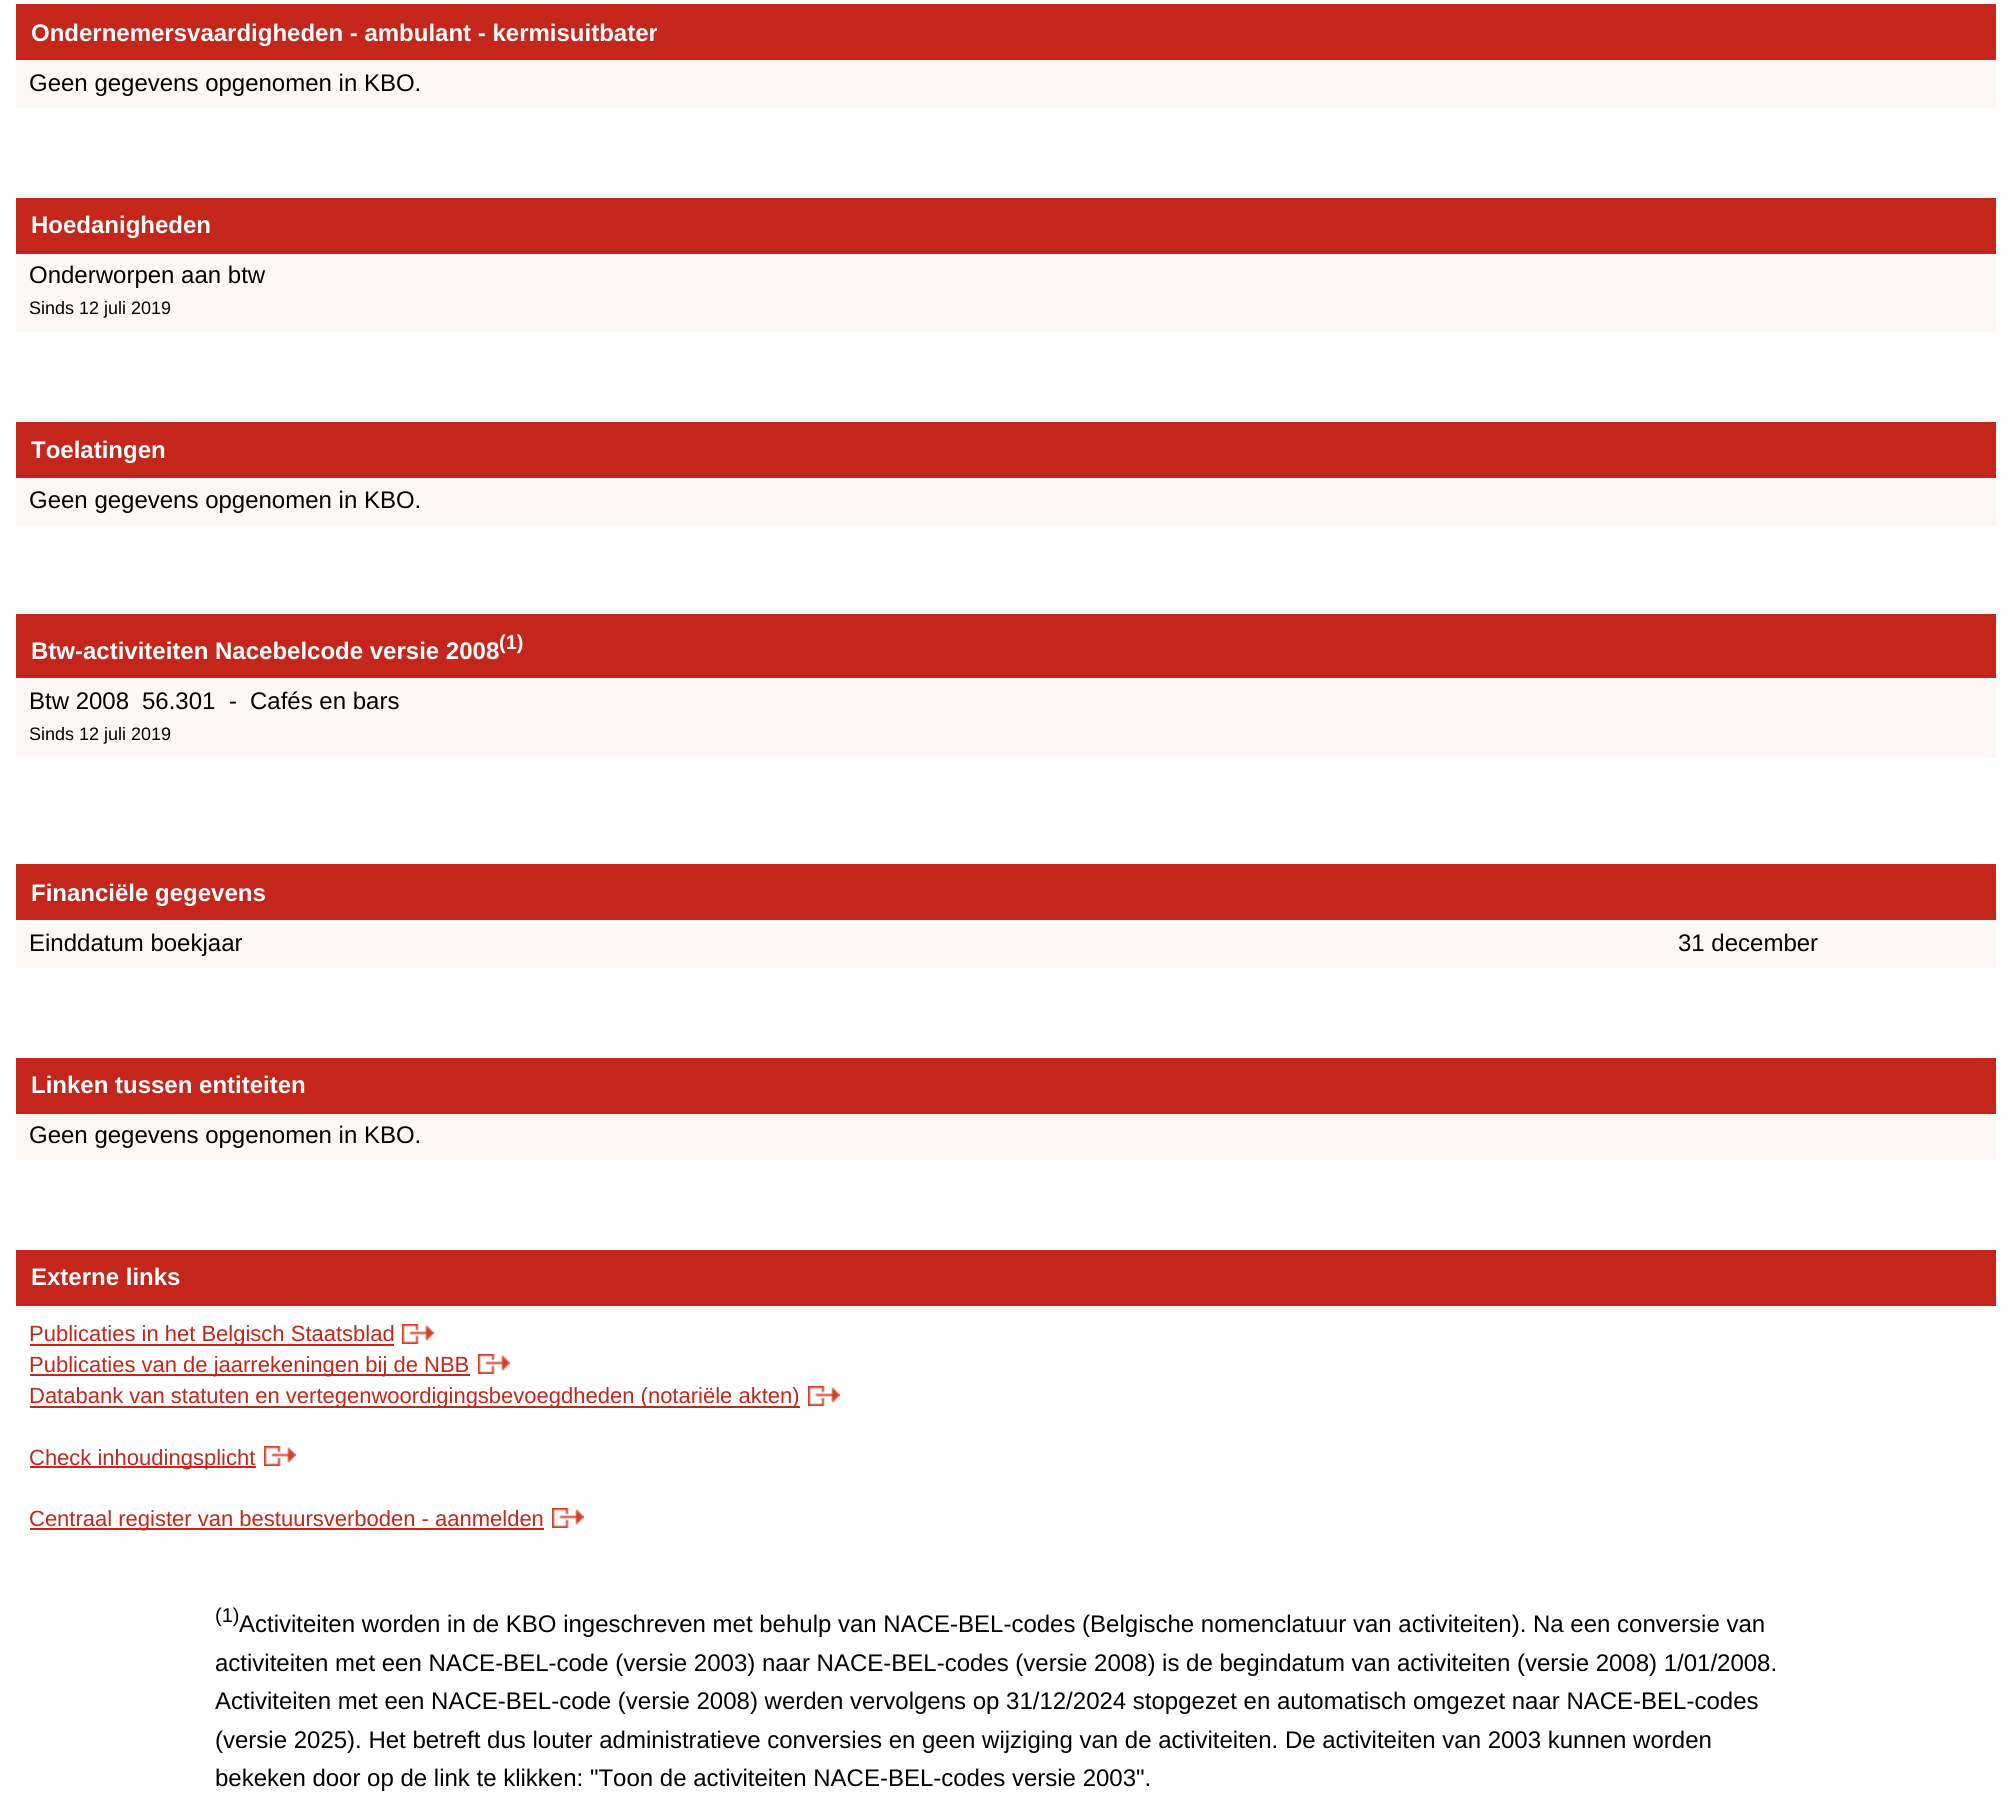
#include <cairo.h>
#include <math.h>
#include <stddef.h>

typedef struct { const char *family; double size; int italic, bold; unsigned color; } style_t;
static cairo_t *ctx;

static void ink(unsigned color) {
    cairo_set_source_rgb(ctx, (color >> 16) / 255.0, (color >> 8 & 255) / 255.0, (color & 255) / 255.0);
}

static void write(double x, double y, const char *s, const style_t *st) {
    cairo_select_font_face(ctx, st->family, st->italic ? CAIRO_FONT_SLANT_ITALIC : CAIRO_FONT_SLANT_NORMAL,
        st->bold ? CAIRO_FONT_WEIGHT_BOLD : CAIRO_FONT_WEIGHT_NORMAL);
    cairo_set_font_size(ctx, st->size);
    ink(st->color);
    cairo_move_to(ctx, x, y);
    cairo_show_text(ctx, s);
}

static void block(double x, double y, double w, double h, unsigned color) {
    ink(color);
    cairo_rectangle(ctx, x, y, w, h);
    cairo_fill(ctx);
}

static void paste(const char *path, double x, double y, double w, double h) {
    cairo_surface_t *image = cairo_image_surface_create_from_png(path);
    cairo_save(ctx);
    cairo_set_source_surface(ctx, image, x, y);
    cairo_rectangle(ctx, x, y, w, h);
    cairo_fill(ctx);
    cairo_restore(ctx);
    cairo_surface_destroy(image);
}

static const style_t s1 = {"Liberation Sans", 24, 0, 1, 0xffffff};
static const style_t s2 = {"Liberation Sans", 24, 0, 0, 0x000000};
static const style_t s3 = {"Liberation Sans", 18, 0, 0, 0x000000};
static const style_t s4 = {"Liberation Sans", 20, 0, 1, 0xffffff};
static const style_t s5 = {"Liberation Sans", 22, 0, 0, 0xc5261b};
static const style_t s6 = {"Liberation Sans", 20, 0, 0, 0x000000};

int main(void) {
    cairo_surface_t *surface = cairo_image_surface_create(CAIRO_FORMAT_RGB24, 2010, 1804);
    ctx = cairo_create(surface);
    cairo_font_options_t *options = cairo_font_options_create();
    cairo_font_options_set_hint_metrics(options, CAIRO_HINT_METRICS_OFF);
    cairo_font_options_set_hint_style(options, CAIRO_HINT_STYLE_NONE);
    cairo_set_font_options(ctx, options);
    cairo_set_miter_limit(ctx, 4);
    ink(0xffffff);
    cairo_paint(ctx);
    block(16, 4, 1980, 56, 0xc5261b);
    write(31, 41, "Ondernemersvaardigheden - ambulant - kermisuitbater", &s1);
    block(16, 60, 1980, 48, 0xfdf7f6);
    write(29, 91, "Geen gegevens opgenomen in KBO.", &s2);
    block(16, 198, 1980, 56, 0xc5261b);
    write(31, 233, "Hoedanigheden", &s1);
    block(16, 254, 1980, 78, 0xfdf7f6);
    write(29, 283, "Onderworpen aan btw", &s2);
    write(29, 314, "Sinds 12 juli 2019", &s3);
    block(16, 422, 1980, 56, 0xc5261b);
    write(31, 458, "Toelatingen", &s1);
    block(16, 478, 1980, 48, 0xfdf7f6);
    write(29, 508, "Geen gegevens opgenomen in KBO.", &s2);
    block(16, 614, 1980, 64, 0xc5261b);
    write(31, 659, "Btw-activiteiten Nacebelcode versie 2008", &s1);
    write(499, 649, "(1)", &s4);
    block(16, 678, 1980, 80, 0xfdf7f6);
    write(29, 709, "Btw 2008", &s2);
    write(142, 709, "56.301", &s2);
    write(229, 709, "-", &s2);
    write(250, 709, "Cafés en bars", &s2);
    write(29, 740, "Sinds 12 juli 2019", &s3);
    block(16, 864, 1980, 56, 0xc5261b);
    write(31, 901, "Financiële gegevens", &s1);
    block(16, 920, 1980, 48, 0xfdf7f6);
    write(29, 951, "Einddatum boekjaar", &s2);
    write(1678, 951, "31 december", &s2);
    block(16, 1058, 1980, 56, 0xc5261b);
    write(31, 1093, "Linken tussen entiteiten", &s1);
    block(16, 1114, 1980, 46, 0xfdf7f6);
    write(29, 1143, "Geen gegevens opgenomen in KBO.", &s2);
    block(16, 1250, 1980, 56, 0xc5261b);
    write(31, 1285, "Externe links", &s1);
    block(30, 1344, 364, 2, 0xc5261b);
    write(29, 1341, "Publicaties in het Belgisch Staatsblad", &s5);
    paste("pic1.png", 402, 1324, 32, 20);
    block(30, 1374, 440, 2, 0xc5261b);
    write(29, 1372, "Publicaties van de jaarrekeningen bij de NBB", &s5);
    paste("pic1.png", 478, 1354, 32, 20);
    block(30, 1406, 770, 2, 0xc5261b);
    write(29, 1403, "Databank van statuten en vertegenwoordigingsbevoegdheden (notariële akten)", &s5);
    paste("pic1.png", 808, 1386, 32, 20);
    block(30, 1466, 226, 2, 0xc5261b);
    write(29, 1465, "Check inhoudingsplicht", &s5);
    paste("pic1.png", 264, 1446, 32, 20);
    block(30, 1528, 514, 2, 0xc5261b);
    write(29, 1526, "Centraal register van bestuursverboden - aanmelden", &s5);
    paste("pic1.png", 552, 1508, 32, 20);
    write(215, 1622, "(1)", &s6);
    write(239, 1632, "Activiteiten worden in de KBO ingeschreven met behulp van NACE-BEL-codes (Belgische nomenclatuur van activiteiten). Na een conversie van", &s2);
    write(215, 1671, "activiteiten met een NACE-BEL-code (versie 2003) naar NACE-BEL-codes (versie 2008) is de begindatum van activiteiten (versie 2008) 1/01/2008.", &s2);
    write(215, 1709, "Activiteiten met een NACE-BEL-code (versie 2008) werden vervolgens op 31/12/2024 stopgezet en automatisch omgezet naar NACE-BEL-codes", &s2);
    write(215, 1748, "(versie 2025). Het betreft dus louter administratieve conversies en geen wijziging van de activiteiten. De activiteiten van 2003 kunnen worden", &s2);
    write(215, 1786, "bekeken door op de link te klikken: \"Toon de activiteiten NACE-BEL-codes versie 2003\".", &s2);
    cairo_surface_write_to_png(surface, "screenshot.png");
    cairo_font_options_destroy(options);
    cairo_destroy(ctx);
    cairo_surface_destroy(surface);
    return 0;
}
